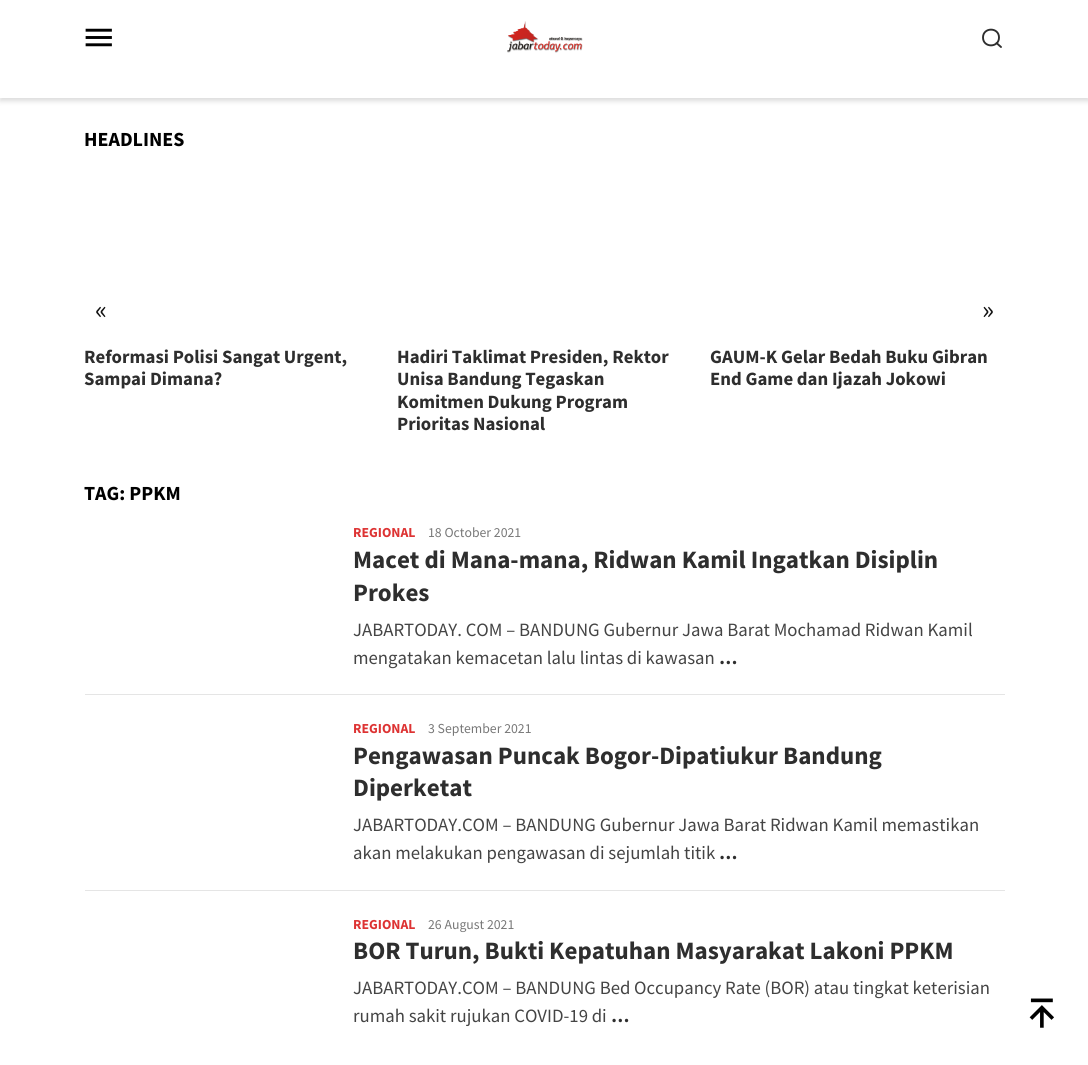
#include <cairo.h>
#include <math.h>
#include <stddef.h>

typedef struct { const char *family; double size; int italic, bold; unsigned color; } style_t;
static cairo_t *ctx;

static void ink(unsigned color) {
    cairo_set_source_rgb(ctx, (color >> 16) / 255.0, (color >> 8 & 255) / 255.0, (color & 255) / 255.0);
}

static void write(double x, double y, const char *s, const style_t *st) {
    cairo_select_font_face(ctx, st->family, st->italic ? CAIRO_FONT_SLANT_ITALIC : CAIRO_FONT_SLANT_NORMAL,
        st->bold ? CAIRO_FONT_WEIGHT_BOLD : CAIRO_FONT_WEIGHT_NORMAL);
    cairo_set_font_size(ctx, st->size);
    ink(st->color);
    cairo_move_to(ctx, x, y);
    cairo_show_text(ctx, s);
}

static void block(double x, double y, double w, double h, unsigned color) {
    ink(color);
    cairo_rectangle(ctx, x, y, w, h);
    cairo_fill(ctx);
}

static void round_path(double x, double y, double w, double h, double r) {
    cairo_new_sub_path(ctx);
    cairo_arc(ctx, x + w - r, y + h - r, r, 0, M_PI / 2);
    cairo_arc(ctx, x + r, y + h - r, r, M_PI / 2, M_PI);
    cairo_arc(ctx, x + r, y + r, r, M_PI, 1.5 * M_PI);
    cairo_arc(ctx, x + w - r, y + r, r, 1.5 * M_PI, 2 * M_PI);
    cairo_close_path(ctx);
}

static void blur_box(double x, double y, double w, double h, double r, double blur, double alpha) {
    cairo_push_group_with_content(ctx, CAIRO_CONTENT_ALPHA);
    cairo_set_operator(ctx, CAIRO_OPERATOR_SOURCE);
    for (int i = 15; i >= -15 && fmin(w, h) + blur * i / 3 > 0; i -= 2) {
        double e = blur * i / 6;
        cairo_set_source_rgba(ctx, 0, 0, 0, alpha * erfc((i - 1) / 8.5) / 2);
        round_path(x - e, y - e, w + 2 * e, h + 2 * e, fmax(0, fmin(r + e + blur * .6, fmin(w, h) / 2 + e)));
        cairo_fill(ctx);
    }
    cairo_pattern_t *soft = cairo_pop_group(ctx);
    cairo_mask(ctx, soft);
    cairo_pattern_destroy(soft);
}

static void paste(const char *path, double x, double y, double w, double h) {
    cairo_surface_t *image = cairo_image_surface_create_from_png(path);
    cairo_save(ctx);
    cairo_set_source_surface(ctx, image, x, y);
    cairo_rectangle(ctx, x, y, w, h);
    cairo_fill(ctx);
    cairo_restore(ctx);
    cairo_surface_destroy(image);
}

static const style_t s1 = {"Source Sans Pro", 20, 0, 1, 0x000000};
static const style_t s2 = {"Source Sans Pro", 28, 0, 0, 0x111111};
static const style_t s3 = {"Source Sans Pro", 18.75, 0, 1, 0x2e2e2e};
static const style_t s4 = {"Source Sans Pro", 13.75, 0, 1, 0xdd3333};
static const style_t s5 = {"Source Sans Pro", 13.75, 0, 0, 0x787878};
static const style_t s6 = {"Source Sans Pro", 25, 0, 1, 0x2e2e2e};
static const style_t s7 = {"Source Sans Pro", 18.75, 0, 0, 0x444444};

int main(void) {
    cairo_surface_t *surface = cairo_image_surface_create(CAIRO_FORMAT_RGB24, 1088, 1065);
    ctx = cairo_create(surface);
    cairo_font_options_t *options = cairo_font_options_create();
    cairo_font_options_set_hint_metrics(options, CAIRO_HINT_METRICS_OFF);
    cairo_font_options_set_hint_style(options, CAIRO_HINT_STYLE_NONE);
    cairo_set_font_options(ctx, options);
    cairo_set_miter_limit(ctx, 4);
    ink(0xffffff);
    cairo_paint(ctx);
    ink(0x343434);
    blur_box(0, 4, 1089, 97, 0, 2.5, 0.18);
    block(0, 0, 1088, 98, 0xffffff);
    paste("pic1.png", 85, 28, 27, 19);
    paste("pic2.png", 507, 21, 76, 32);
    cairo_new_path(ctx);
    cairo_move_to(ctx, 1001, 47);
    cairo_line_to(ctx, 996.5, 43);
    cairo_move_to(ctx, 999, 37.5);
    cairo_curve_to(ctx, 999, 48, 983, 48, 983, 37.5);
    cairo_curve_to(ctx, 983, 27, 999, 27, 999, 37.5);
    cairo_close_path(ctx);
    ink(0x2e2e2e);
    cairo_set_line_width(ctx, 1.9);
    cairo_set_line_cap(ctx, CAIRO_LINE_CAP_ROUND);
    cairo_stroke(ctx);
    write(84, 146, "HEADLINES", &s1);
    write(95, 319, "«", &s2);
    write(982, 319, "»", &s2);
    write(84, 363, "Reformasi Polisi Sangat Urgent,", &s3);
    write(84, 385, "Sampai Dimana?", &s3);
    write(397, 363, "Hadiri Taklimat Presiden, Rektor", &s3);
    write(397, 385, "Unisa Bandung Tegaskan", &s3);
    write(397, 408, "Komitmen Dukung Program", &s3);
    write(397, 430, "Prioritas Nasional", &s3);
    write(710, 363, "GAUM-K Gelar Bedah Buku Gibran", &s3);
    write(710, 385, "End Game dan Ijazah Jokowi", &s3);
    write(84, 500, "TAG: PPKM", &s1);
    block(85, 694, 920, 1, 0xe5e5e5);
    write(353, 537, "REGIONAL", &s4);
    write(428, 537, "18 October 2021", &s5);
    write(353, 568, "Macet di Mana-mana, Ridwan Kamil Ingatkan Disiplin", &s6);
    write(353, 601, "Prokes", &s6);
    write(353, 636, "JABARTODAY. COM – BANDUNG Gubernur Jawa Barat Mochamad Ridwan Kamil", &s7);
    write(353, 664, "mengatakan kemacetan lalu lintas di kawasan", &s7);
    write(719, 664, "…", &s3);
    block(85, 890, 920, 1, 0xe5e5e5);
    write(353, 733, "REGIONAL", &s4);
    write(428, 733, "3 September 2021", &s5);
    write(353, 764, "Pengawasan Puncak Bogor-Dipatiukur Bandung", &s6);
    write(353, 796, "Diperketat", &s6);
    write(353, 831, "JABARTODAY.COM – BANDUNG Gubernur Jawa Barat Ridwan Kamil memastikan", &s7);
    write(353, 859, "akan melakukan pengawasan di sejumlah titik", &s7);
    write(719, 859, "…", &s3);
    write(353, 929, "REGIONAL", &s4);
    write(428, 929, "26 August 2021", &s5);
    write(353, 959, "BOR Turun, Bukti Kepatuhan Masyarakat Lakoni PPKM", &s6);
    write(353, 994, "JABARTODAY.COM – BANDUNG Bed Occupancy Rate (BOR) atau tingkat keterisian", &s7);
    write(353, 1022, "rumah sakit rujukan COVID-19 di", &s7);
    write(611, 1022, "…", &s3);
    paste("pic3.png", 1029, 998, 25, 30);
    cairo_surface_write_to_png(surface, "screenshot.png");
    cairo_font_options_destroy(options);
    cairo_destroy(ctx);
    cairo_surface_destroy(surface);
    return 0;
}
